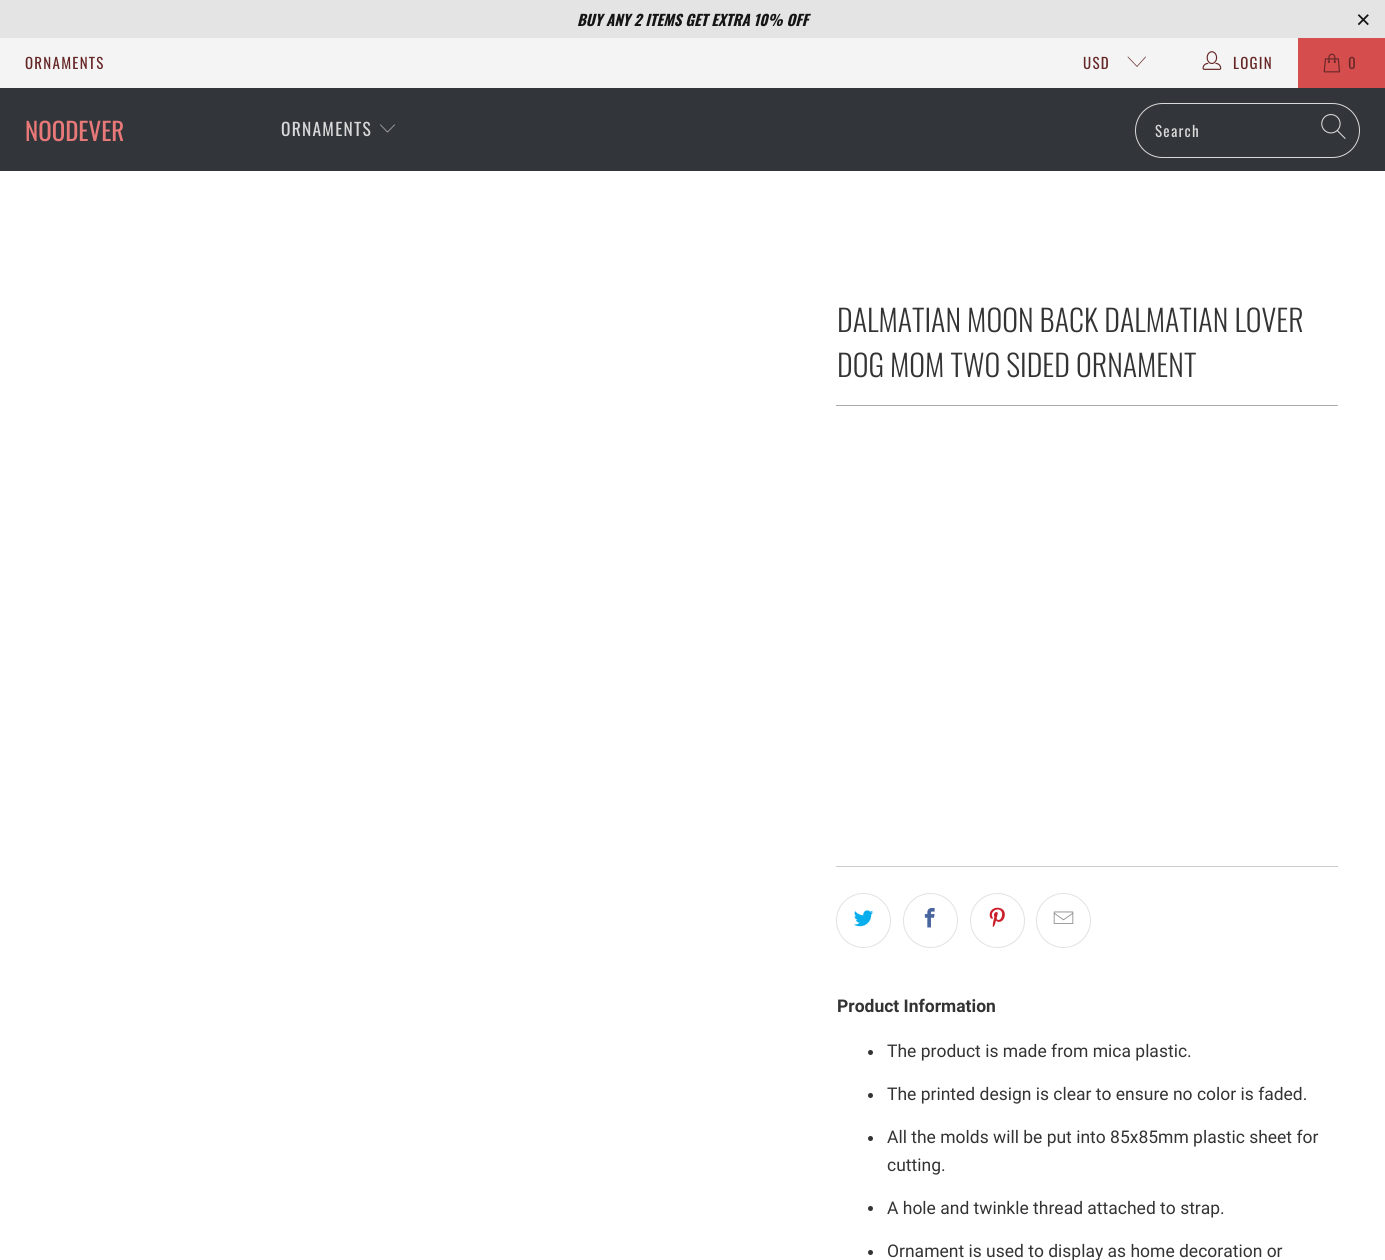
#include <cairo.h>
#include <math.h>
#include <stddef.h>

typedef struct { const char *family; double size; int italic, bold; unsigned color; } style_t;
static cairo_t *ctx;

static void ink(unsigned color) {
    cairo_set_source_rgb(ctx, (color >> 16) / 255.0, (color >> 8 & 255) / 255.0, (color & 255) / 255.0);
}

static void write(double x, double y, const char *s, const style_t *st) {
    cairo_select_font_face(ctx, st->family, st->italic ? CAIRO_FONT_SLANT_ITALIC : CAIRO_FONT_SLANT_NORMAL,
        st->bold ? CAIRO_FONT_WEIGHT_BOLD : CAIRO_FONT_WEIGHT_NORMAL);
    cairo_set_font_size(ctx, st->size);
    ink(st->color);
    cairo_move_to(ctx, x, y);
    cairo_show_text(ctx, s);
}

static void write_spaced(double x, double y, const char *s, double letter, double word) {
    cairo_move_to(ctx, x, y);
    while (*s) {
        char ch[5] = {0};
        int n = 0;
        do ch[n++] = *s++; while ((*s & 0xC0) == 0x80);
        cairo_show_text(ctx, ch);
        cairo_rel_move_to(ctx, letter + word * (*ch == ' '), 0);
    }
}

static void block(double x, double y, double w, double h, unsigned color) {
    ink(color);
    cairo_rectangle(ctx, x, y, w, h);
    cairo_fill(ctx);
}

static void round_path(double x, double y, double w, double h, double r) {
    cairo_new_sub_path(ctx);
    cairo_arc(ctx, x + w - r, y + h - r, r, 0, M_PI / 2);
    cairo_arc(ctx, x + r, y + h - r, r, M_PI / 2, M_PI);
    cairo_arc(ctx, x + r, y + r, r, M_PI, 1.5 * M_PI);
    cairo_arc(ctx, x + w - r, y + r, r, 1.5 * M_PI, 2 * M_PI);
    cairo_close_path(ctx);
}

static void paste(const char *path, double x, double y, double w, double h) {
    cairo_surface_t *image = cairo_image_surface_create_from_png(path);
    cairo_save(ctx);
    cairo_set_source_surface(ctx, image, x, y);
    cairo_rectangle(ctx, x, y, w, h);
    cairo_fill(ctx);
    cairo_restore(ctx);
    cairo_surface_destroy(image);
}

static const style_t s1 = {"Oswald", 15, 1, 1, 0x151515};
static const style_t s2 = {"Liberation Sans", 25, 0, 0, 0x151515};
static const style_t s3 = {"Oswald", 25, 0, 0, 0xe97979};
static const style_t s4 = {"Oswald Light", 30, 0, 0, 0x333333};
static const style_t s5 = {"Roboto", 17.5, 0, 1, 0x333333};
static const style_t s6 = {"Roboto", 17.5, 0, 0, 0x333333};

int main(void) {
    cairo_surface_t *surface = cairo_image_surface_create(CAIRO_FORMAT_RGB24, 1385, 1260);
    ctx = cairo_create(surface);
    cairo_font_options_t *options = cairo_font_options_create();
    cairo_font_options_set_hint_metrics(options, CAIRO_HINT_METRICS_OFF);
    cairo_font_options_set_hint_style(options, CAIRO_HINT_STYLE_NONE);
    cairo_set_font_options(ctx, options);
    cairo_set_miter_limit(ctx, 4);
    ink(0xffffff);
    cairo_paint(ctx);
    block(0, 0, 1385, 38, 0xe4e4e4);
    write(577, 26, "BUY ANY 2 ITEMS GET EXTRA 10% OFF", &s1);
    write(1356, 28, "×", &s2);
    block(0, 38, 1298, 50, 0xf4f4f4);
    cairo_select_font_face(ctx, "Oswald", CAIRO_FONT_SLANT_NORMAL, CAIRO_FONT_WEIGHT_NORMAL);
    cairo_set_font_size(ctx, 15);
    ink(0x662727);
    write_spaced(25, 69, "ORNAMENTS", 1.25, 0);
    write_spaced(1083, 69, "USD", 1.25, 0);
    cairo_new_path(ctx);
    cairo_move_to(ctx, 1137, 67);
    cairo_line_to(ctx, 1127.5, 57);
    cairo_line_to(ctx, 1128, 56.5);
    cairo_line_to(ctx, 1137, 66);
    cairo_line_to(ctx, 1145.5, 56.5);
    cairo_line_to(ctx, 1146, 57);
    cairo_close_path(ctx);
    cairo_fill(ctx);
    paste("pic1.png", 1202, 51, 20, 19);
    write_spaced(1233, 69, "LOGIN", 1.25, 0);
    block(1298, 38, 87, 50, 0xd54d4d);
    paste("pic2.png", 1323, 53, 18, 20);
    ink(0x662727);
    write_spaced(1348, 69, "0", 1.25, 0);
    block(0, 88, 1385, 83, 0x323539);
    write(25, 141, "NOODEVER", &s3);
    cairo_set_font_size(ctx, 17.5);
    ink(0xd9d9d9);
    write_spaced(281, 136, "ORNAMENTS", 1.25, 0);
    paste("pic3.png", 380, 124, 15, 9);
    round_path(1135.5, 103.5, 224, 54, 27);
    cairo_set_line_width(ctx, 1);
    cairo_stroke(ctx);
    cairo_set_font_size(ctx, 15);
    write_spaced(1155, 137, "Search", 1.25, 0);
    paste("pic4.png", 1321, 114, 25, 25);
    write(837, 332, "DALMATIAN MOON BACK DALMATIAN LOVER", &s4);
    write(837, 377, "DOG MOM TWO SIDED ORNAMENT", &s4);
    block(836, 405, 502, 1, 0xaaaaaa);
    block(836, 866, 502, 1, 0xcccccc);
    cairo_new_path(ctx);
    cairo_arc(ctx, 863.5, 920.5, 27, 0, 2 * M_PI);
    ink(0xe2e2e2);
    cairo_stroke(ctx);
    paste("pic5.png", 854, 910, 20, 17);
    cairo_arc(ctx, 930.5, 920.5, 27, 0, 2 * M_PI);
    cairo_stroke(ctx);
    paste("pic6.png", 924, 908, 11, 20);
    cairo_arc(ctx, 997.5, 920.5, 27, 0, 2 * M_PI);
    cairo_stroke(ctx);
    paste("pic7.png", 989, 907, 16, 20);
    cairo_arc(ctx, 1063.5, 920.5, 27, 0, 2 * M_PI);
    cairo_stroke(ctx);
    paste("pic8.png", 1053, 911, 21, 13);
    write(837, 1012, "Product Information", &s5);
    cairo_new_path(ctx);
    cairo_arc(ctx, 870.5, 1052.5, 2.5, 0, 2 * M_PI);
    cairo_fill(ctx);
    write(887, 1057, "The product is made from mica plastic.", &s6);
    cairo_new_path(ctx);
    cairo_arc(ctx, 870.5, 1095.5, 2.5, 0, 2 * M_PI);
    cairo_fill(ctx);
    write(887, 1100, "The printed design is clear to ensure no color is faded.", &s6);
    cairo_new_path(ctx);
    cairo_arc(ctx, 870.5, 1138.5, 2.5, 0, 2 * M_PI);
    cairo_fill(ctx);
    write(887, 1143, "All the molds will be put into 85x85mm plastic sheet for", &s6);
    write(887, 1171, "cutting.", &s6);
    cairo_new_path(ctx);
    cairo_arc(ctx, 870.5, 1208.5, 2.5, 0, 2 * M_PI);
    cairo_fill(ctx);
    write(887, 1214, "A hole and twinkle thread attached to strap.", &s6);
    cairo_new_path(ctx);
    cairo_arc(ctx, 870.5, 1252.5, 2.5, 0, 2 * M_PI);
    cairo_fill(ctx);
    write(887, 1257, "Ornament is used to display as home decoration or", &s6);
    cairo_surface_write_to_png(surface, "screenshot.png");
    cairo_font_options_destroy(options);
    cairo_destroy(ctx);
    cairo_surface_destroy(surface);
    return 0;
}
